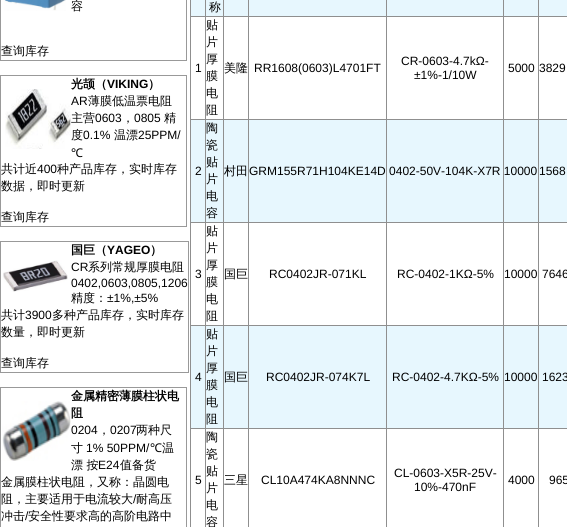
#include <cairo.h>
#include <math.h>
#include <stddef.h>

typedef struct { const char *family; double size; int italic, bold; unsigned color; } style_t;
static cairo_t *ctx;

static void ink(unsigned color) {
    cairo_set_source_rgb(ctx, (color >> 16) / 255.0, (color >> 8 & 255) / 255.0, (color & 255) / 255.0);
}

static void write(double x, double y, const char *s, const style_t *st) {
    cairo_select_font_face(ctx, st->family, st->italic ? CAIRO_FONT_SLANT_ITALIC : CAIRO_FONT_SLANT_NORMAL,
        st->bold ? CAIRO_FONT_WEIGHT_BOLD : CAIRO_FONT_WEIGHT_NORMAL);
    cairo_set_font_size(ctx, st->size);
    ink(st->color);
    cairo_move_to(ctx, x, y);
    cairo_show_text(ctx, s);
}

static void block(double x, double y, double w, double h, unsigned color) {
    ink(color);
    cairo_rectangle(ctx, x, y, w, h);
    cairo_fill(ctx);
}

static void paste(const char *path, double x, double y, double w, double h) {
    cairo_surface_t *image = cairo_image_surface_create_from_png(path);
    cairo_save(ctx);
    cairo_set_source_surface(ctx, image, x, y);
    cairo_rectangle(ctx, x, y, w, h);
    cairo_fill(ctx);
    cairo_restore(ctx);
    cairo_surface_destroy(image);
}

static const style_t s1 = {"WenQuanYi Zen Hei Medium", 12, 0, 0, 0x000000};
static const style_t s2 = {"WenQuanYi Zen Hei", 12, 0, 1, 0x000000};
static const style_t s3 = {"Liberation Sans", 12, 0, 1, 0x000000};
static const style_t s4 = {"Liberation Sans", 12, 0, 0, 0x000000};
static const style_t s5 = {"Noto Sans", 12, 0, 0, 0x000000};

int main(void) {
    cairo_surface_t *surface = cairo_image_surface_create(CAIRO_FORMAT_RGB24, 567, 527);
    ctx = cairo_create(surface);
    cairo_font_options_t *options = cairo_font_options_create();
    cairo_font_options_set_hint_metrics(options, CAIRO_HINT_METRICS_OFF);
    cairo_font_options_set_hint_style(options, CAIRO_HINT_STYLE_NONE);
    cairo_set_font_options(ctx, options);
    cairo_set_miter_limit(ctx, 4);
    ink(0xffffff);
    cairo_paint(ctx);
    block(0, 0, 187, 61, 0x999999);
    block(1, 0, 185, 60, 0xffffff);
    paste("pic1.png", 4, 0, 62, 11);
    write(71, 10, "容", &s1);
    write(1, 55, "查询库存", &s1);
    block(0, 75, 187, 152, 0x999999);
    block(1, 76, 185, 150, 0xffffff);
    paste("pic2.png", 5, 89, 66, 60);
    write(71, 88, "光颉（", &s2);
    write(107, 88, "VIKING", &s3);
    write(148, 88, "）", &s2);
    write(71, 105, "AR", &s4);
    write(88, 105, "薄膜低温票电阻", &s1);
    write(71, 122, "主营", &s1);
    write(95, 122, "0603", &s4);
    write(122, 122, "，", &s1);
    write(134, 122, "0805", &s4);
    write(164, 122, "精", &s1);
    write(71, 139, "度", &s1);
    write(83, 139, "0.1%", &s4);
    write(114, 139, "温漂", &s1);
    write(138, 139, "25PPM/", &s4);
    write(71, 157, "℃", &s5);
    write(1, 173, "共计近", &s1);
    write(37, 173, "400", &s4);
    write(57, 173, "种产品库存，实时库存", &s1);
    write(1, 190, "数据，即时更新", &s1);
    write(1, 221, "查询库存", &s1);
    block(0, 241, 189, 132, 0x999999);
    block(1, 242, 187, 130, 0xffffff);
    paste("pic3.png", 3, 260, 65, 32);
    write(71, 254, "国巨（", &s2);
    write(107, 254, "YAGEO", &s3);
    write(150, 254, "）", &s2);
    write(71, 271, "CR", &s4);
    write(88, 271, "系列常规厚膜电阻", &s1);
    write(71, 287, "0402,0603,0805,1206", &s4);
    write(71, 302, "精度：", &s1);
    write(107, 302, "±1%,±5%", &s4);
    write(1, 319, "共计", &s1);
    write(25, 319, "3900", &s4);
    write(52, 319, "多种产品库存，实时库存", &s1);
    write(1, 336, "数量，即时更新", &s1);
    write(1, 367, "查询库存", &s1);
    block(0, 387, 187, 140, 0x999999);
    block(1, 388, 185, 139, 0xffffff);
    paste("pic4.png", 2, 401, 69, 60);
    write(71, 400, "金属精密薄膜柱状电", &s2);
    write(71, 417, "阻", &s2);
    write(71, 434, "0204", &s4);
    write(98, 434, "，", &s1);
    write(110, 434, "0207", &s4);
    write(136, 434, "两种尺", &s1);
    write(71, 452, "寸", &s1);
    write(86, 452, "1% 50PPM/", &s4);
    write(150, 452, "℃", &s5);
    write(162, 452, "温", &s1);
    write(71, 469, "漂 按", &s1);
    write(98, 469, "E24", &s4);
    write(120, 469, "值备货", &s1);
    write(1, 486, "金属膜柱状电阻，又称：晶圆电", &s1);
    write(1, 503, "阻，主要适用于电流较大", &s1);
    write(133, 503, "/", &s4);
    write(136, 503, "耐高压", &s1);
    write(1, 520, "冲击", &s1);
    write(25, 520, "/", &s4);
    write(28, 520, "安全性要求高的高阶电路中", &s1);
    block(190, 0, 377, 527, 0x8f8f8f);
    block(191, 0, 14, 16, 0xe7f7fe);
    block(206, 0, 17, 16, 0xe7f7fe);
    write(209, 11, "称", &s1);
    block(224, 0, 24, 16, 0xe7f7fe);
    block(249, 0, 137, 16, 0xe7f7fe);
    block(387, 0, 116, 16, 0xe7f7fe);
    block(504, 0, 34, 16, 0xe7f7fe);
    block(539, 0, 28, 16, 0xe7f7fe);
    block(191, 17, 14, 102, 0xffffff);
    write(195, 72, "1", &s4);
    block(206, 17, 17, 102, 0xffffff);
    write(206, 29, "贴", &s1);
    write(206, 46, "片", &s1);
    write(206, 63, "厚", &s1);
    write(206, 80, "膜", &s1);
    write(206, 97, "电", &s1);
    write(206, 114, "阻", &s1);
    block(224, 17, 24, 102, 0xffffff);
    write(224, 72, "美隆", &s1);
    block(249, 17, 137, 102, 0xffffff);
    write(254, 72, "RR1608(0603)L4701FT", &s4);
    block(387, 17, 116, 102, 0xffffff);
    write(401, 65, "CR-0603-4.7kΩ-", &s4);
    write(414, 79, "±1%-1/10W", &s4);
    block(504, 17, 34, 102, 0xffffff);
    write(508, 72, "5000", &s4);
    block(539, 17, 28, 102, 0xffffff);
    write(539, 72, "3829", &s4);
    block(191, 120, 14, 102, 0xe7f7fe);
    write(195, 175, "2", &s4);
    block(206, 120, 17, 102, 0xe7f7fe);
    write(206, 132, "陶", &s1);
    write(206, 149, "瓷", &s1);
    write(206, 166, "贴", &s1);
    write(206, 183, "片", &s1);
    write(206, 200, "电", &s1);
    write(206, 217, "容", &s1);
    block(224, 120, 24, 102, 0xe7f7fe);
    write(224, 175, "村田", &s1);
    block(387, 120, 116, 102, 0xe7f7fe);
    block(504, 120, 34, 102, 0xe7f7fe);
    block(249, 120, 137, 102, 0xe7f7fe);
    write(249, 175, "GRM155R71H104KE14D 0402-50V-104K-X7R 10000", &s4);
    block(539, 120, 28, 102, 0xe7f7fe);
    write(539, 175, "1568", &s4);
    block(191, 223, 14, 102, 0xffffff);
    write(195, 278, "3", &s4);
    block(206, 223, 17, 102, 0xffffff);
    write(206, 235, "贴", &s1);
    write(206, 252, "片", &s1);
    write(206, 269, "厚", &s1);
    write(206, 286, "膜", &s1);
    write(206, 303, "电", &s1);
    write(206, 320, "阻", &s1);
    block(224, 223, 24, 102, 0xffffff);
    write(224, 278, "国巨", &s1);
    block(249, 223, 137, 102, 0xffffff);
    write(269, 278, "RC0402JR-071KL", &s4);
    block(387, 223, 116, 102, 0xffffff);
    write(397, 278, "RC-0402-1KΩ-5%", &s4);
    block(504, 223, 34, 102, 0xffffff);
    write(504, 278, "10000", &s4);
    block(539, 223, 28, 102, 0xffffff);
    write(542, 278, "7646", &s4);
    block(191, 326, 14, 102, 0xe7f7fe);
    write(195, 381, "4", &s4);
    block(206, 326, 17, 102, 0xe7f7fe);
    write(206, 338, "贴", &s1);
    write(206, 355, "片", &s1);
    write(206, 372, "厚", &s1);
    write(206, 389, "膜", &s1);
    write(206, 406, "电", &s1);
    write(206, 423, "阻", &s1);
    block(224, 326, 24, 102, 0xe7f7fe);
    write(224, 381, "国巨", &s1);
    block(249, 326, 137, 102, 0xe7f7fe);
    write(266, 381, "RC0402JR-074K7L", &s4);
    block(387, 326, 116, 102, 0xe7f7fe);
    write(392, 381, "RC-0402-4.7KΩ-5%", &s4);
    block(504, 326, 34, 102, 0xe7f7fe);
    write(504, 381, "10000", &s4);
    block(539, 326, 28, 102, 0xe7f7fe);
    write(542, 381, "1623", &s4);
    block(191, 429, 14, 98, 0xffffff);
    write(195, 484, "5", &s4);
    block(206, 429, 17, 98, 0xffffff);
    write(206, 441, "陶", &s1);
    write(206, 458, "瓷", &s1);
    write(206, 475, "贴", &s1);
    write(206, 492, "片", &s1);
    write(206, 509, "电", &s1);
    write(206, 526, "容", &s1);
    block(224, 429, 24, 98, 0xffffff);
    write(224, 484, "三星", &s1);
    block(249, 429, 137, 98, 0xffffff);
    write(261, 484, "CL10A474KA8NNNC", &s4);
    block(387, 429, 116, 98, 0xffffff);
    write(394, 477, "CL-0603-X5R-25V-", &s4);
    write(414, 491, "10%-470nF", &s4);
    block(504, 429, 34, 98, 0xffffff);
    write(508, 484, "4000", &s4);
    block(539, 429, 28, 98, 0xffffff);
    write(549, 484, "965", &s4);
    cairo_surface_write_to_png(surface, "screenshot.png");
    cairo_font_options_destroy(options);
    cairo_destroy(ctx);
    cairo_surface_destroy(surface);
    return 0;
}
